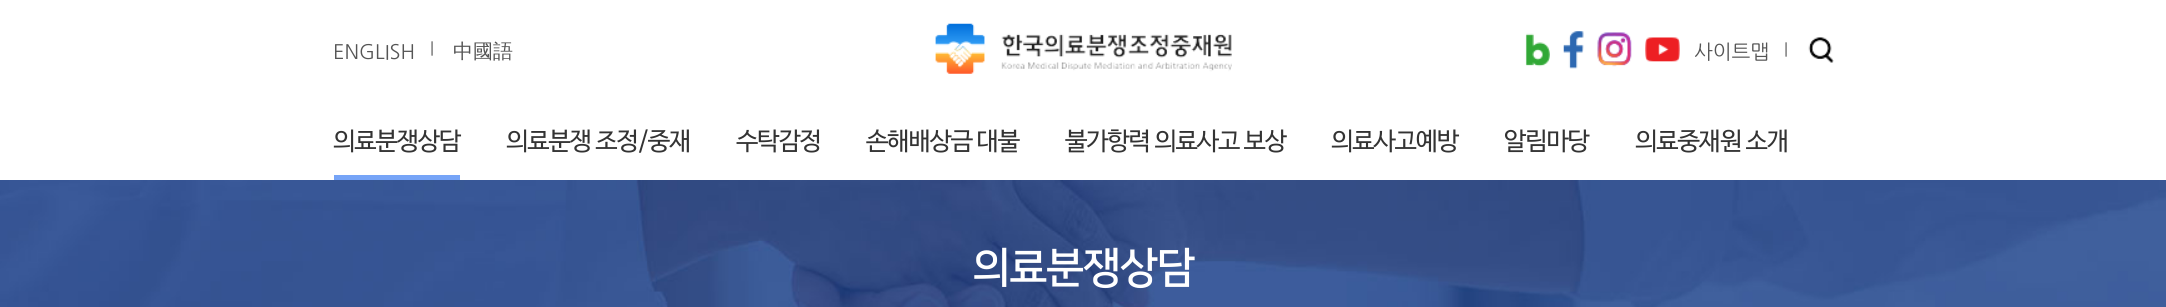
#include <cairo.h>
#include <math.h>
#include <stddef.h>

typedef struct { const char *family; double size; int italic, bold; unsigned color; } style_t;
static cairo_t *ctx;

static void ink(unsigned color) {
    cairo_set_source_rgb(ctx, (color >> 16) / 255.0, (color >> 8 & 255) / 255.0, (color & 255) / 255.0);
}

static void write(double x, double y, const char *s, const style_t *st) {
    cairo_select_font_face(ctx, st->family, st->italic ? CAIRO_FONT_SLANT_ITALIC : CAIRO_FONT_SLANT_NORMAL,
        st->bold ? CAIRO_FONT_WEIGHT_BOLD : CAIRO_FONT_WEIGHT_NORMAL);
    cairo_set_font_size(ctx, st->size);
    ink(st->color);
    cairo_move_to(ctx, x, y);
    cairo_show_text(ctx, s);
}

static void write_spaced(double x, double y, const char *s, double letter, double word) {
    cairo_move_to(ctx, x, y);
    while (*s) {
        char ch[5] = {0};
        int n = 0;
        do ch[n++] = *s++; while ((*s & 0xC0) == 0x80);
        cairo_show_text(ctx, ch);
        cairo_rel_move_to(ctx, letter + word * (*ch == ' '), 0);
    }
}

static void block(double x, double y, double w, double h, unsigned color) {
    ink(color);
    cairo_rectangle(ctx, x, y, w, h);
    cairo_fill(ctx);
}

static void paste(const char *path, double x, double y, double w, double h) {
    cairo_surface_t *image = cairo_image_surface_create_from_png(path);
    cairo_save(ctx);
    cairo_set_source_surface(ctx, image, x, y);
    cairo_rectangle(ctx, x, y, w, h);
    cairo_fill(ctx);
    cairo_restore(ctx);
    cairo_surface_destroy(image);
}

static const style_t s1 = {"NanumGothic", 20, 0, 0, 0x555555};
static const style_t s2 = {"NanumGothic", 16, 0, 0, 0x555555};
static const style_t s3 = {"WenQuanYi Zen Hei Medium", 20, 0, 0, 0x555555};

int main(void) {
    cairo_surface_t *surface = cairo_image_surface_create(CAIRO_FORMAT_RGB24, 2166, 307);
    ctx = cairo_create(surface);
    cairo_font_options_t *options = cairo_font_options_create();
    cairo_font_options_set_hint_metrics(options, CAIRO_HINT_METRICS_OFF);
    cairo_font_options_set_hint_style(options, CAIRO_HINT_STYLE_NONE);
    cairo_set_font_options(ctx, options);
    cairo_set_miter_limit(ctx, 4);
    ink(0xffffff);
    cairo_paint(ctx);
    write(333, 59, "ENGLISH", &s1);
    write(430, 54, "|", &s2);
    write(453, 58, "中國語", &s3);
    paste("pic1.png", 935, 23, 297, 51);
    paste("pic2.png", 1525, 33, 25, 34);
    paste("pic3.png", 1563, 31, 21, 38);
    paste("pic4.png", 1597, 32, 35, 35);
    paste("pic5.png", 1645, 37, 35, 25);
    write(1694, 59, "사이트맵", &s1);
    write(1784, 55, "|", &s2);
    paste("pic6.png", 1808, 37, 26, 26);
    cairo_select_font_face(ctx, "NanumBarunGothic", CAIRO_FONT_SLANT_NORMAL, CAIRO_FONT_WEIGHT_NORMAL);
    cairo_set_font_size(ctx, 25);
    ink(0x333333);
    write_spaced(333, 149, "의료분쟁상담", -1.1, 0);
    block(334, 175, 126, 5, 0x76a4f7);
    ink(0x333333);
    write_spaced(506, 149, "의료분쟁 조정/중재", -1.1, 0);
    write_spaced(736, 149, "수탁감정", -1.1, 0);
    write_spaced(866, 149, "손해배상금 대불", -1.1, 0);
    write_spaced(1065, 149, "불가항력 의료사고 보상", -1.1, 0);
    write_spaced(1331, 149, "의료사고예방", -1.1, 0);
    write_spaced(1504, 149, "알림마당", -1.1, 0);
    write_spaced(1635, 149, "의료중재원 소개", -1.1, 0);
    paste("pic7.png", 0, 180, 2166, 127);
    cairo_select_font_face(ctx, "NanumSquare", CAIRO_FONT_SLANT_NORMAL, CAIRO_FONT_WEIGHT_BOLD);
    cairo_set_font_size(ctx, 42.5);
    ink(0xffffff);
    write_spaced(972, 281, "의료분쟁상담", -1.75, 0);
    cairo_surface_write_to_png(surface, "screenshot.png");
    cairo_font_options_destroy(options);
    cairo_destroy(ctx);
    cairo_surface_destroy(surface);
    return 0;
}
